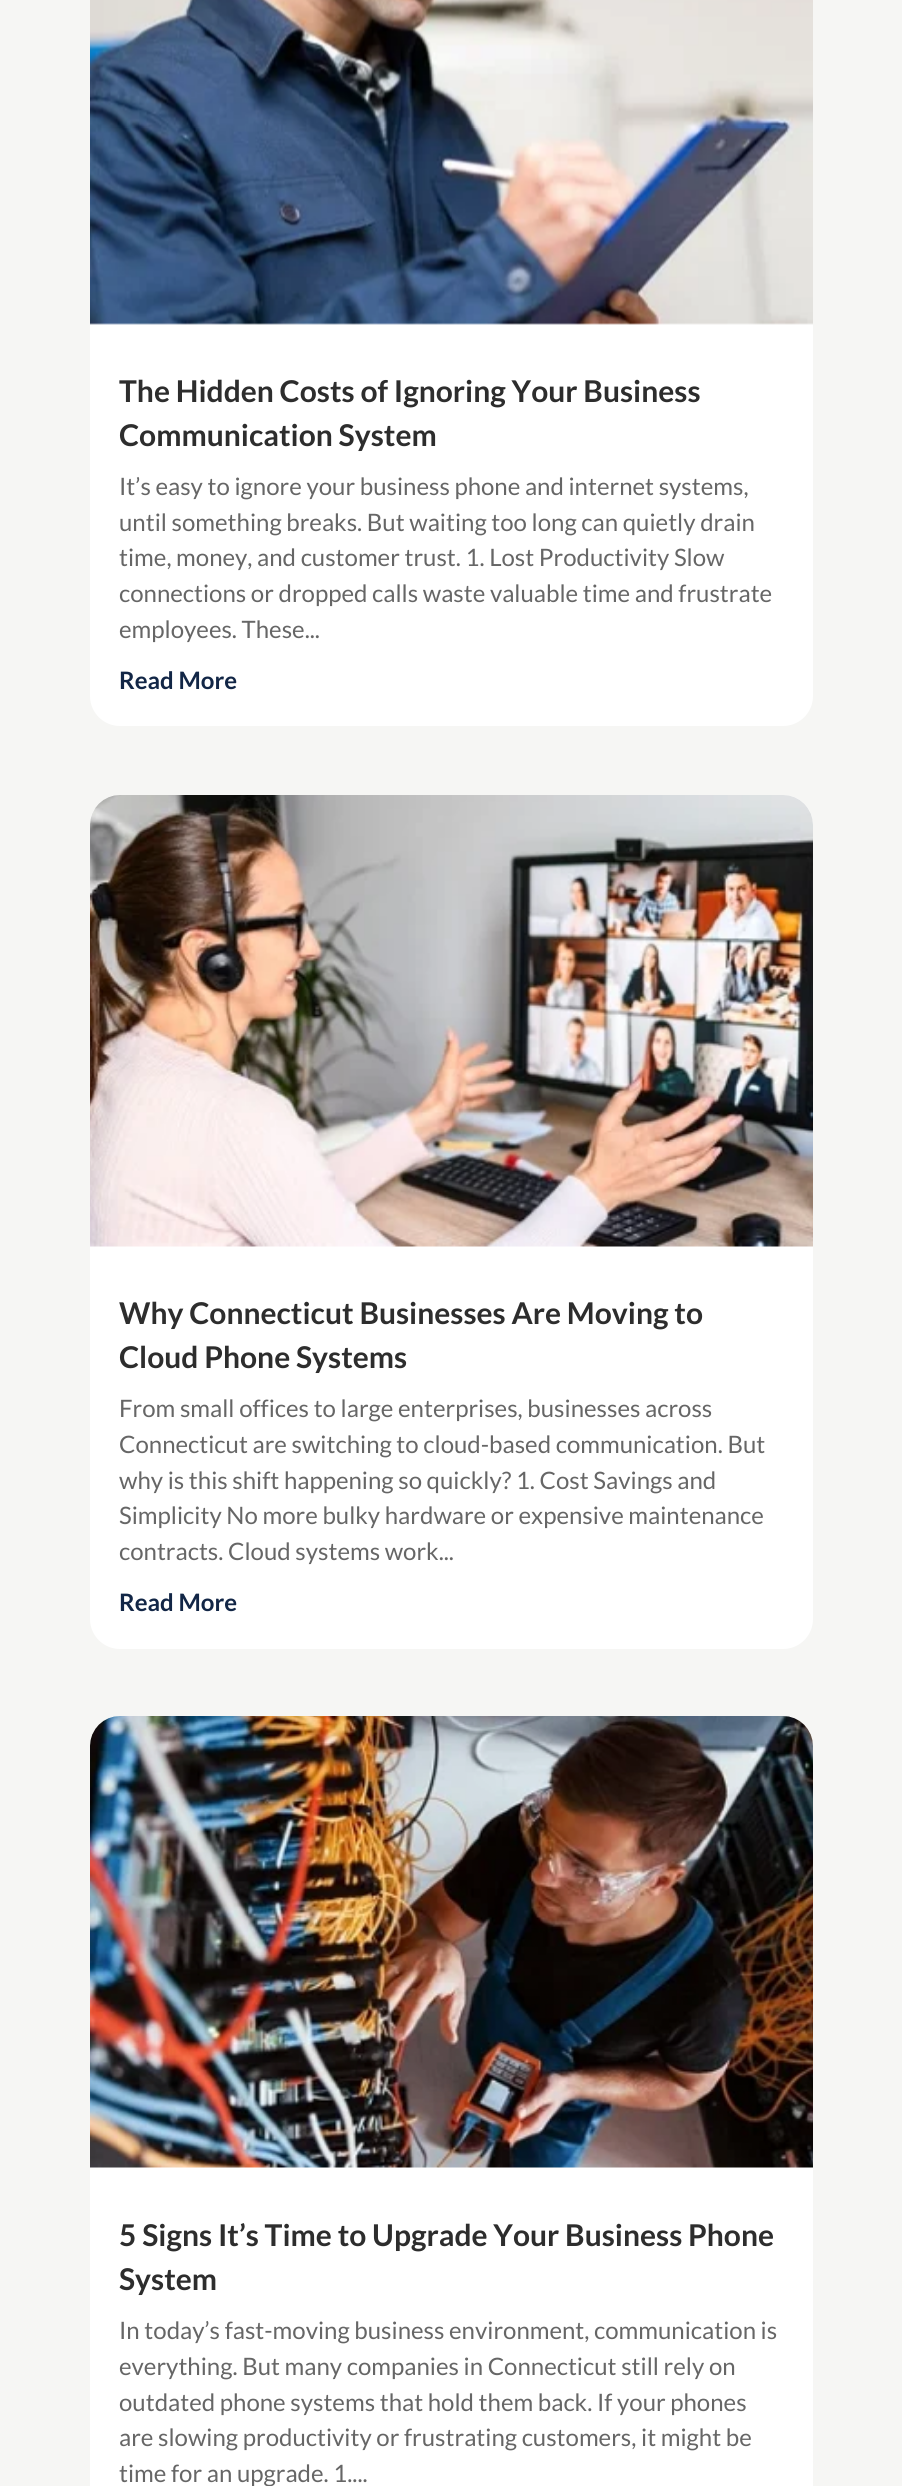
#include <cairo.h>
#include <math.h>
#include <stddef.h>

typedef struct { const char *family; double size; int italic, bold; unsigned color; } style_t;
static cairo_t *ctx;

static void ink(unsigned color) {
    cairo_set_source_rgb(ctx, (color >> 16) / 255.0, (color >> 8 & 255) / 255.0, (color & 255) / 255.0);
}

static void write(double x, double y, const char *s, const style_t *st) {
    cairo_select_font_face(ctx, st->family, st->italic ? CAIRO_FONT_SLANT_ITALIC : CAIRO_FONT_SLANT_NORMAL,
        st->bold ? CAIRO_FONT_WEIGHT_BOLD : CAIRO_FONT_WEIGHT_NORMAL);
    cairo_set_font_size(ctx, st->size);
    ink(st->color);
    cairo_move_to(ctx, x, y);
    cairo_show_text(ctx, s);
}

static void round_path(double x, double y, double w, double h, double r) {
    cairo_new_sub_path(ctx);
    cairo_arc(ctx, x + w - r, y + h - r, r, 0, M_PI / 2);
    cairo_arc(ctx, x + r, y + h - r, r, M_PI / 2, M_PI);
    cairo_arc(ctx, x + r, y + r, r, M_PI, 1.5 * M_PI);
    cairo_arc(ctx, x + w - r, y + r, r, 1.5 * M_PI, 2 * M_PI);
    cairo_close_path(ctx);
}

static void paste(const char *path, double x, double y, double w, double h) {
    cairo_surface_t *image = cairo_image_surface_create_from_png(path);
    cairo_save(ctx);
    cairo_set_source_surface(ctx, image, x, y);
    cairo_rectangle(ctx, x, y, w, h);
    cairo_fill(ctx);
    cairo_restore(ctx);
    cairo_surface_destroy(image);
}

static const style_t s1 = {"Lato", 30, 0, 1, 0x2d2d2d};
static const style_t s2 = {"Lato", 24, 0, 0, 0x666666};
static const style_t s3 = {"Lato", 24, 0, 1, 0x122646};

int main(void) {
    cairo_surface_t *surface = cairo_image_surface_create(CAIRO_FORMAT_RGB24, 902, 2486);
    ctx = cairo_create(surface);
    cairo_font_options_t *options = cairo_font_options_create();
    cairo_font_options_set_hint_metrics(options, CAIRO_HINT_METRICS_OFF);
    cairo_font_options_set_hint_style(options, CAIRO_HINT_STYLE_NONE);
    cairo_set_font_options(ctx, options);
    cairo_set_miter_limit(ctx, 4);
    ink(0xf6f6f4);
    cairo_paint(ctx);
    ink(0xffffff);
    round_path(90, -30, 723, 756, 30);
    cairo_fill(ctx);
    paste("pic1.png", 90, 0, 723, 325);
    write(119, 402, "The Hidden Costs of Ignoring Your Business", &s1);
    write(119, 446, "Communication System", &s1);
    write(119, 495, "It’s easy to ignore your business phone and internet systems,", &s2);
    write(119, 531, "until something breaks. But waiting too long can quietly drain", &s2);
    write(119, 566, "time, money, and customer trust. 1. Lost Productivity Slow", &s2);
    write(119, 602, "connections or dropped calls waste valuable time and frustrate", &s2);
    write(119, 638, "employees. These...", &s2);
    write(119, 689, "Read More", &s3);
    ink(0xffffff);
    round_path(90, 795, 723, 854, 30);
    cairo_fill(ctx);
    paste("pic2.png", 90, 795, 723, 452);
    write(119, 1324, "Why Connecticut Businesses Are Moving to", &s1);
    write(119, 1368, "Cloud Phone Systems", &s1);
    write(119, 1417, "From small offices to large enterprises, businesses across", &s2);
    write(119, 1453, "Connecticut are switching to cloud-based communication. But", &s2);
    write(119, 1489, "why is this shift happening so quickly? 1. Cost Savings and", &s2);
    write(119, 1524, "Simplicity No more bulky hardware or expensive maintenance", &s2);
    write(119, 1560, "contracts. Cloud systems work...", &s2);
    write(119, 1611, "Read More", &s3);
    ink(0xffffff);
    round_path(90, 1716, 723, 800, 30);
    cairo_fill(ctx);
    paste("pic3.png", 90, 1716, 723, 452);
    write(119, 2246, "5 Signs It’s Time to Upgrade Your Business Phone", &s1);
    write(119, 2290, "System", &s1);
    write(119, 2339, "In today’s fast-moving business environment, communication is", &s2);
    write(119, 2375, "everything. But many companies in Connecticut still rely on", &s2);
    write(119, 2411, "outdated phone systems that hold them back. If your phones", &s2);
    write(119, 2446, "are slowing productivity or frustrating customers, it might be", &s2);
    write(119, 2482, "time for an upgrade. 1....", &s2);
    cairo_surface_write_to_png(surface, "screenshot.png");
    cairo_font_options_destroy(options);
    cairo_destroy(ctx);
    cairo_surface_destroy(surface);
    return 0;
}
